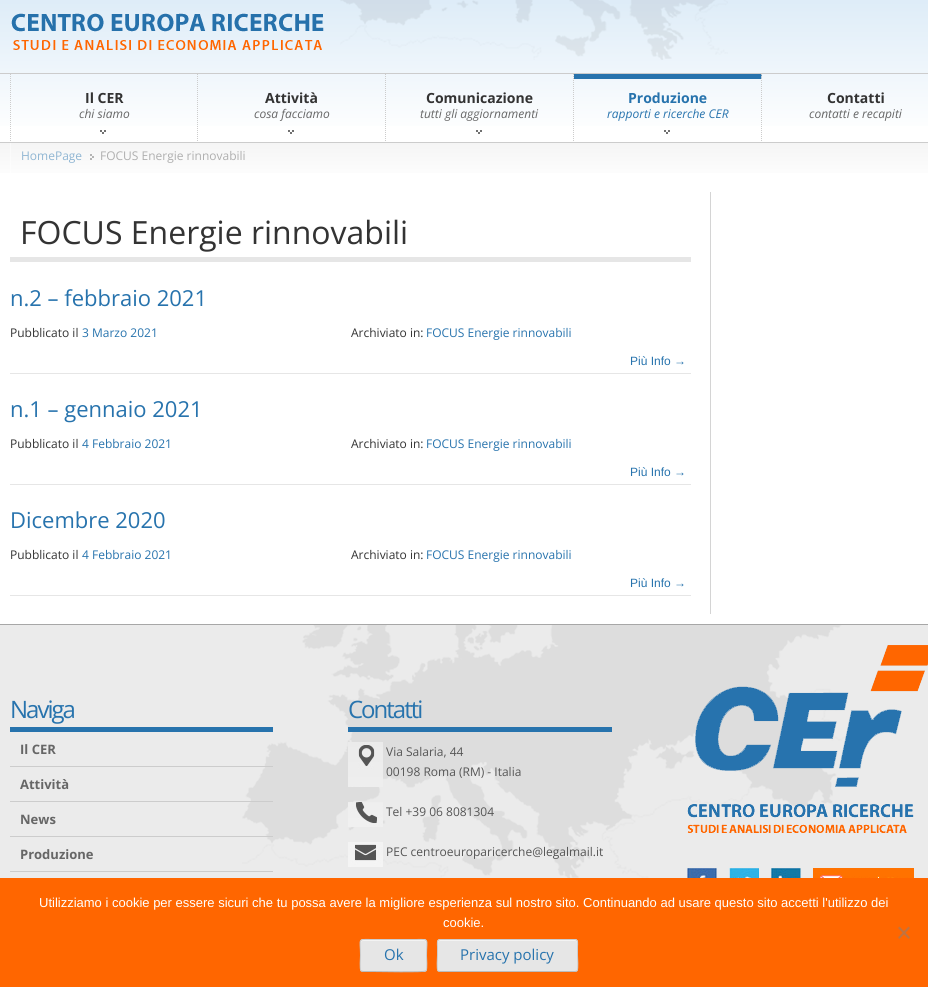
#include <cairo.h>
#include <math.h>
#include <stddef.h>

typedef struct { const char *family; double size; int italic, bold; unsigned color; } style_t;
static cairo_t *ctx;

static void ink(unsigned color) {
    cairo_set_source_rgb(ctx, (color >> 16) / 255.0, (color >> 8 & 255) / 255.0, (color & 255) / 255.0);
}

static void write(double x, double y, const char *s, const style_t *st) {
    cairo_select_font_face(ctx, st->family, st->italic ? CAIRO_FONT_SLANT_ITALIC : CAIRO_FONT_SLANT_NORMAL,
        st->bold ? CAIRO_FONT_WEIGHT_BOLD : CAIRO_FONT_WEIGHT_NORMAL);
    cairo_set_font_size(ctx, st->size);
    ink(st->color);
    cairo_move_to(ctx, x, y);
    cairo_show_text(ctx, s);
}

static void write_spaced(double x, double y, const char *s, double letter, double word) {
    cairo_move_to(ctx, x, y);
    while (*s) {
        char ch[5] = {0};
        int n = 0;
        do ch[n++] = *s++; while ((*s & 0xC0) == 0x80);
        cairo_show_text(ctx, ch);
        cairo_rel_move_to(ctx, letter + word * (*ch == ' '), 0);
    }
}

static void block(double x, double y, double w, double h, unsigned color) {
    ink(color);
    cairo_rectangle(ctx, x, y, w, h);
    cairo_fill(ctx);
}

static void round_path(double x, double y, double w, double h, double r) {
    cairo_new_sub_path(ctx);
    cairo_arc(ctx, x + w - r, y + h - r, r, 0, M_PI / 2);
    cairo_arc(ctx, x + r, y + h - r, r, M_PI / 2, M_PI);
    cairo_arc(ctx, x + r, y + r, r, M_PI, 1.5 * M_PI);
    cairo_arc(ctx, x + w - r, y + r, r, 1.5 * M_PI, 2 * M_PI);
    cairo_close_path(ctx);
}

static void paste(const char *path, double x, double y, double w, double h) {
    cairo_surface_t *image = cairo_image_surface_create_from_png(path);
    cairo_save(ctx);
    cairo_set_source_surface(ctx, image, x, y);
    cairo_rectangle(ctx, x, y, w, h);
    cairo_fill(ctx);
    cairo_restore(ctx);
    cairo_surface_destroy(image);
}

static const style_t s1 = {"Open Sans", 14, 0, 1, 0x333333};
static const style_t s2 = {"Open Sans", 12, 1, 0, 0x666666};
static const style_t s3 = {"Open Sans", 14, 0, 1, 0x2773ad};
static const style_t s4 = {"Open Sans", 12, 1, 0, 0x2773ad};
static const style_t s5 = {"Open Sans", 12, 0, 0, 0x90b6d3};
static const style_t s6 = {"Open Sans", 12, 0, 0, 0xafafaf};
static const style_t s7 = {"Open Sans", 32, 0, 0, 0x333333};
static const style_t s8 = {"Open Sans", 22, 0, 0, 0x2773ad};
static const style_t s9 = {"Open Sans", 12, 0, 0, 0x333333};
static const style_t s10 = {"Open Sans", 12, 0, 0, 0x2773ad};
static const style_t s11 = {"Liberation Sans", 12, 0, 0, 0x2773ad};
static const style_t s12 = {"Open Sans", 13, 0, 1, 0x666666};
static const style_t s13 = {"Open Sans", 12, 0, 0, 0x555555};
static const style_t s14 = {"Liberation Sans", 13, 0, 0, 0xffffff};
static const style_t s15 = {"Open Sans", 15, 0, 0, 0x2773ad};

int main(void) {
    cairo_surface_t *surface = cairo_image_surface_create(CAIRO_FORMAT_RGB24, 928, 987);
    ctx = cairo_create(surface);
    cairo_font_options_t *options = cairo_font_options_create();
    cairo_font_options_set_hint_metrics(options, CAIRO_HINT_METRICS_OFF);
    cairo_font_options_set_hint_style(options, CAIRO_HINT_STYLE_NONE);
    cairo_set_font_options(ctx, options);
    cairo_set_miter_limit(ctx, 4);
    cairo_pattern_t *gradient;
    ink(0xffffff);
    cairo_paint(ctx);
    gradient = cairo_pattern_create_linear(464, -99, 464, 136);
    cairo_pattern_add_color_stop_rgba(gradient, 0, 0.773, 0.871, 0.949, 1);
    cairo_pattern_add_color_stop_rgba(gradient, 1, 1, 1, 1, 1);
    cairo_set_source(ctx, gradient);
    cairo_pattern_destroy(gradient);
    cairo_rectangle(ctx, 0, 0, 928, 126);
    cairo_fill(ctx);
    paste("pic1.png", 340, 0, 388, 60);
    paste("pic2.png", 11, 13, 313, 37);
    block(0, 73, 928, 1, 0xcccccc);
    block(0, 142, 928, 1, 0xcccccc);
    cairo_new_path(ctx);
    cairo_move_to(ctx, 197.5, 74);
    cairo_line_to(ctx, 197.5, 141);
    cairo_set_line_width(ctx, 1);
    cairo_set_dash(ctx, (double[]){1, 1}, 2, 0);
    cairo_stroke(ctx);
    cairo_new_path(ctx);
    cairo_move_to(ctx, 10.5, 74);
    cairo_line_to(ctx, 10.5, 141);
    cairo_stroke(ctx);
    write(85, 103, "Il CER", &s1);
    write(79, 118, "chi siamo", &s2);
    paste("pic3.png", 100, 130, 6, 4);
    cairo_new_path(ctx);
    cairo_move_to(ctx, 385.5, 74);
    cairo_line_to(ctx, 385.5, 141);
    ink(0xcccccc);
    cairo_stroke(ctx);
    write(265, 103, "Attività", &s1);
    write(254, 118, "cosa facciamo", &s2);
    paste("pic3.png", 288, 130, 6, 4);
    cairo_new_path(ctx);
    cairo_move_to(ctx, 573.5, 74);
    cairo_line_to(ctx, 573.5, 141);
    ink(0xcccccc);
    cairo_stroke(ctx);
    write(426, 103, "Comunicazione", &s1);
    write(420, 118, "tutti gli aggiornamenti", &s2);
    paste("pic3.png", 476, 130, 6, 4);
    ink(0x2773ad);
    cairo_new_path(ctx);
    cairo_move_to(ctx, 574, 74);
    cairo_line_to(ctx, 762, 74);
    cairo_line_to(ctx, 761, 79);
    cairo_line_to(ctx, 574, 79);
    cairo_close_path(ctx);
    cairo_fill(ctx);
    cairo_new_path(ctx);
    cairo_move_to(ctx, 761.5, 74);
    cairo_line_to(ctx, 761.5, 141);
    ink(0xcccccc);
    cairo_stroke(ctx);
    write(628, 103, "Produzione", &s3);
    write(607, 118, "rapporti e ricerche CER", &s4);
    paste("pic3.png", 664, 130, 6, 4);
    write(827, 103, "Contatti", &s1);
    write(809, 118, "contatti e recapiti", &s2);
    gradient = cairo_pattern_create_linear(464, 143, 464, 183);
    cairo_pattern_add_color_stop_rgba(gradient, 0, 0.961, 0.961, 0.961, 1);
    cairo_pattern_add_color_stop_rgba(gradient, 1, 1, 1, 1, 1);
    cairo_set_source(ctx, gradient);
    cairo_pattern_destroy(gradient);
    cairo_rectangle(ctx, 0, 143, 928, 30);
    cairo_fill(ctx);
    gradient = cairo_pattern_create_linear(464, 143, 464, 183);
    cairo_pattern_add_color_stop_rgba(gradient, 0, 0.98, 0.98, 0.98, 1);
    cairo_pattern_add_color_stop_rgba(gradient, 1, 1, 1, 1, 1);
    cairo_set_source(ctx, gradient);
    cairo_pattern_destroy(gradient);
    cairo_rectangle(ctx, 10, 143, 1, 30);
    cairo_fill(ctx);
    write(21, 160, "HomePage", &s5);
    paste("pic4.png", 90, 154, 4, 6);
    write(100, 160, "FOCUS Energie rinnovabili", &s6);
    block(710, 192, 1, 422, 0xd4d4d4);
    block(10, 257, 681, 5, 0xe6e6e6);
    write(20, 244, "FOCUS Energie rinnovabili", &s7);
    block(10, 373, 681, 1, 0xe6e6e6);
    write(10, 306, "n.2 – febbraio 2021", &s8);
    write(10, 337, "Pubblicato il", &s9);
    write(82, 337, "3 Marzo 2021", &s10);
    write(351, 337, "Archiviato in:", &s9);
    write(426, 337, "FOCUS Energie rinnovabili", &s10);
    write(630, 365, "Più Info →", &s11);
    block(10, 484, 681, 1, 0xe6e6e6);
    write(10, 417, "n.1 – gennaio 2021", &s8);
    write(10, 448, "Pubblicato il", &s9);
    write(82, 448, "4 Febbraio 2021", &s10);
    write(351, 448, "Archiviato in:", &s9);
    write(426, 448, "FOCUS Energie rinnovabili", &s10);
    write(630, 476, "Più Info →", &s11);
    block(10, 595, 681, 1, 0xe6e6e6);
    write(10, 528, "Dicembre 2020", &s8);
    write(10, 559, "Pubblicato il", &s9);
    write(82, 559, "4 Febbraio 2021", &s10);
    write(351, 559, "Archiviato in:", &s9);
    write(426, 559, "FOCUS Energie rinnovabili", &s10);
    write(630, 587, "Più Info →", &s11);
    block(0, 625, 928, 253, 0xebebeb);
    paste("pic5.png", 242, 625, 606, 253);
    block(0, 624, 928, 1, 0xa7a7a7);
    block(10, 727, 263, 5, 0x2773ad);
    cairo_select_font_face(ctx, "Open Sans", CAIRO_FONT_SLANT_NORMAL, CAIRO_FONT_WEIGHT_NORMAL);
    cairo_set_font_size(ctx, 24);
    write_spaced(10, 718, "Naviga", -2, 0);
    block(10, 766, 263, 1, 0xcccccc);
    write(20, 754, "Il CER", &s12);
    block(10, 801, 263, 1, 0xcccccc);
    write(20, 789, "Attività", &s12);
    block(10, 836, 263, 1, 0xcccccc);
    write(20, 824, "News", &s12);
    block(10, 871, 263, 1, 0xcccccc);
    write(20, 859, "Produzione", &s12);
    block(348, 727, 264, 5, 0x2773ad);
    cairo_select_font_face(ctx, "Open Sans", CAIRO_FONT_SLANT_NORMAL, CAIRO_FONT_WEIGHT_NORMAL);
    cairo_set_font_size(ctx, 24);
    write_spaced(348, 718, "Contatti", -2, 0);
    paste("pic6.png", 348, 742, 35, 45);
    write(386, 756, "Via Salaria, 44", &s13);
    write(386, 776, "00198 Roma (RM) - Italia", &s13);
    paste("pic7.png", 348, 802, 35, 25);
    write(386, 816, "Tel +39 06 8081304", &s13);
    paste("pic8.png", 348, 842, 35, 25);
    write(386, 856, "PEC centroeuroparicerche@legalmail.it", &s13);
    paste("pic9.png", 687, 645, 241, 188);
    paste("pic10.png", 687, 868, 30, 10);
    paste("pic11.png", 729, 868, 30, 10);
    paste("pic12.png", 771, 868, 30, 10);
    paste("pic13.png", 813, 868, 101, 10);
    block(0, 878, 928, 109, 0xff6600);
    write(39, 907, "Utilizziamo i cookie per essere sicuri che tu possa avere la migliore esperienza sul nostro sito. Continuando ad usare questo sito accetti l'utilizzo dei", &s14);
    write(443, 927, "cookie.", &s14);
    ink(0xc07340);
    cairo_new_path(ctx);
    cairo_move_to(ctx, 908.5, 926.5);
    cairo_line_to(ctx, 910, 928);
    cairo_line_to(ctx, 899.5, 939);
    cairo_line_to(ctx, 898, 937.5);
    cairo_close_path(ctx);
    cairo_fill(ctx);
    cairo_new_path(ctx);
    cairo_move_to(ctx, 898, 928);
    cairo_line_to(ctx, 899.5, 926.5);
    cairo_line_to(ctx, 910, 937.5);
    cairo_line_to(ctx, 908.5, 939);
    cairo_close_path(ctx);
    cairo_fill(ctx);
    ink(0xe6e6e6);
    round_path(360, 939, 67, 33, 3);
    cairo_fill(ctx);
    ink(0xf3f3f3);
    cairo_new_path(ctx);
    cairo_move_to(ctx, 363, 941);
    cairo_line_to(ctx, 425, 941);
    cairo_line_to(ctx, 426, 943);
    cairo_curve_to(ctx, 426, 937, 418, 940, 414, 940);
    cairo_line_to(ctx, 373, 940);
    cairo_curve_to(ctx, 369, 940, 361, 937, 361, 943);
    cairo_curve_to(ctx, 361, 942, 362, 941, 363, 941);
    cairo_close_path(ctx);
    cairo_fill(ctx);
    cairo_new_path(ctx);
    cairo_move_to(ctx, 426, 971);
    cairo_line_to(ctx, 425.5, 971);
    cairo_curve_to(ctx, 423.5, 972.5, 379, 971.5, 373, 971.5);
    cairo_line_to(ctx, 363, 971.5);
    cairo_line_to(ctx, 361, 971);
    ink(0xbbbbbb);
    cairo_set_dash(ctx, NULL, 0, 0);
    cairo_stroke(ctx);
    cairo_new_path(ctx);
    cairo_move_to(ctx, 361, 971);
    cairo_curve_to(ctx, 359.5, 969, 360.5, 958, 360.5, 955.5);
    cairo_curve_to(ctx, 360.5, 937.5, 356.5, 939.5, 373, 939.5);
    cairo_line_to(ctx, 414, 939.5);
    cairo_curve_to(ctx, 430.5, 939.5, 426.5, 937.5, 426.5, 955.5);
    cairo_curve_to(ctx, 426.5, 958, 427.5, 969, 426, 971);
    ink(0xcccccc);
    cairo_stroke(ctx);
    write(384, 960, "Ok", &s15);
    ink(0xe6e6e6);
    round_path(437, 939, 141, 33, 3);
    cairo_fill(ctx);
    ink(0xf3f3f3);
    cairo_new_path(ctx);
    cairo_move_to(ctx, 440, 941);
    cairo_line_to(ctx, 575, 941);
    cairo_curve_to(ctx, 576, 941, 577, 942, 577, 943);
    cairo_curve_to(ctx, 577, 942, 577, 940, 575, 940);
    cairo_line_to(ctx, 440, 940);
    cairo_curve_to(ctx, 438, 940, 438, 942, 438, 943);
    cairo_curve_to(ctx, 438, 942, 439, 941, 440, 941);
    cairo_close_path(ctx);
    cairo_fill(ctx);
    cairo_new_path(ctx);
    cairo_move_to(ctx, 577, 971);
    cairo_line_to(ctx, 575, 971.5);
    cairo_line_to(ctx, 440, 971.5);
    cairo_line_to(ctx, 438, 971);
    ink(0xbbbbbb);
    cairo_stroke(ctx);
    cairo_new_path(ctx);
    cairo_move_to(ctx, 438, 971);
    cairo_curve_to(ctx, 436.5, 969, 437.5, 958, 437.5, 955.5);
    cairo_line_to(ctx, 437.5, 946.5);
    cairo_curve_to(ctx, 437.5, 944.5, 436.5, 939.5, 440, 939.5);
    cairo_line_to(ctx, 575, 939.5);
    cairo_curve_to(ctx, 578.5, 939.5, 577.5, 944.5, 577.5, 946.5);
    cairo_line_to(ctx, 577.5, 955.5);
    cairo_curve_to(ctx, 577.5, 958, 578.5, 969, 577, 971);
    ink(0xcccccc);
    cairo_stroke(ctx);
    write(460, 960, "Privacy policy", &s15);
    cairo_surface_write_to_png(surface, "screenshot.png");
    cairo_font_options_destroy(options);
    cairo_destroy(ctx);
    cairo_surface_destroy(surface);
    return 0;
}
